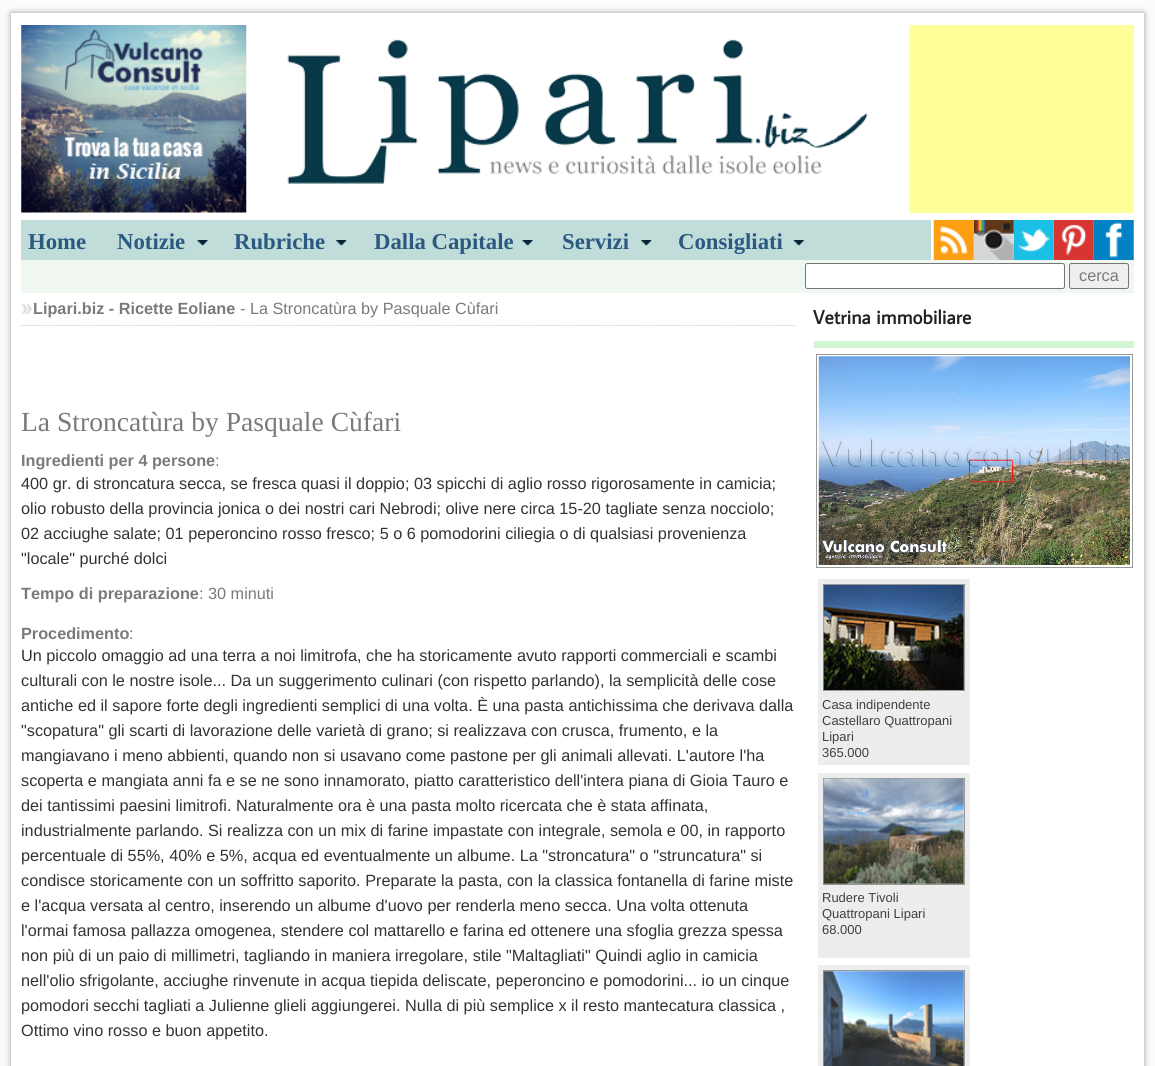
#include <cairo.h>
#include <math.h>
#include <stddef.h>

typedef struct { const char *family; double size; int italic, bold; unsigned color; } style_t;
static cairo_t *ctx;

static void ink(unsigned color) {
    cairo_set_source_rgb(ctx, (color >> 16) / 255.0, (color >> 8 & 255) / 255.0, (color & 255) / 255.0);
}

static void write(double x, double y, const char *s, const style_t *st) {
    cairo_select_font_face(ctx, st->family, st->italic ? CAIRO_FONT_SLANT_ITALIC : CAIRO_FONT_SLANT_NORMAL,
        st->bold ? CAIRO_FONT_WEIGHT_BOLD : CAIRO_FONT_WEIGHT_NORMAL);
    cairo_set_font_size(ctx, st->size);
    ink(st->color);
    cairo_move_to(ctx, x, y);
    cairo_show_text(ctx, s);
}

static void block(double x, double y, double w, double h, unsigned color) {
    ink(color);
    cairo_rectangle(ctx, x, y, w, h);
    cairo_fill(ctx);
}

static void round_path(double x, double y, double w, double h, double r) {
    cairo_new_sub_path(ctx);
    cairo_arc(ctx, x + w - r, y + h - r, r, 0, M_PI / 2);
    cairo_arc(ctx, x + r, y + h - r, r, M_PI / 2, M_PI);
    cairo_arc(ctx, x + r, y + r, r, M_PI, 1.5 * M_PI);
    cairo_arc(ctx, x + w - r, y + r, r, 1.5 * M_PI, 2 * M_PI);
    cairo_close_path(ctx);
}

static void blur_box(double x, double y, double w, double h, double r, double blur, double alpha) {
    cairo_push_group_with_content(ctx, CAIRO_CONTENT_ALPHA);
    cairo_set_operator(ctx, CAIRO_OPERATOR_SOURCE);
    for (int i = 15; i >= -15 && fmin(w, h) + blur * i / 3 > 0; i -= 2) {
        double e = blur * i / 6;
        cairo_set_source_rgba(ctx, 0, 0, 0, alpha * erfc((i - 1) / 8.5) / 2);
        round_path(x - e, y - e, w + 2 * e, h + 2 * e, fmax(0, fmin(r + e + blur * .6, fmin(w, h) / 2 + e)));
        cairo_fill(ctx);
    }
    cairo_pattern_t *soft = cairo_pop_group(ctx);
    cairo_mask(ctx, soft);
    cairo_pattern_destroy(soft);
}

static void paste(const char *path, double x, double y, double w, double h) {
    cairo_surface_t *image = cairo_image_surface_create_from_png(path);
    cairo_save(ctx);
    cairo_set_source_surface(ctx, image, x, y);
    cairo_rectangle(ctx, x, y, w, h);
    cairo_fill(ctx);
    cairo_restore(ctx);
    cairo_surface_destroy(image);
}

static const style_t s1 = {"Liberation Serif", 22.75, 0, 1, 0x2b5981};
static const style_t s2 = {"Liberation Sans", 16.25, 0, 0, 0x7a7a7a};
static const style_t s3 = {"Liberation Sans", 16.25, 0, 1, 0x7a7a7a};
static const style_t s4 = {"Liberation Serif", 27.6, 0, 0, 0x7a7a7a};
static const style_t s5 = {"Liberation Sans", 16.25, 0, 0, 0x333333};
static const style_t s6 = {"Average Sans", 19.5, 0, 1, 0x24211e};
static const style_t s7 = {"Liberation Sans", 13, 0, 0, 0x404040};

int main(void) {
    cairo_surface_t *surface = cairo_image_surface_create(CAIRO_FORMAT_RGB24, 1155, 1066);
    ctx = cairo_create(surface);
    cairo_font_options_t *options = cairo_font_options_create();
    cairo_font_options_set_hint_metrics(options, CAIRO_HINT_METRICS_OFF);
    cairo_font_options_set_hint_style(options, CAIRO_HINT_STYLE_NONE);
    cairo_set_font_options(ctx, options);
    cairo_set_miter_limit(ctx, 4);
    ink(0xfbfbfb);
    cairo_paint(ctx);
    ink(0x999999);
    blur_box(11, 13, 1133, 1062, 0, 3, 1);
    block(11, 13, 1133, 1053, 0xffffff);
    paste("pic1.png", 21, 25, 226, 188);
    paste("pic2.png", 287, 39, 581, 145);
    block(909, 25, 225, 188, 0xffff99);
    block(21, 220, 910, 40, 0xc0ddd9);
    write(28, 249, "Home", &s1);
    paste("pic3.png", 197, 240, 11, 6);
    write(117, 249, "Notizie", &s1);
    paste("pic4.png", 336, 240, 11, 6);
    write(234, 249, "Rubriche", &s1);
    paste("pic3.png", 522, 240, 11, 6);
    write(374, 249, "Dalla Capitale", &s1);
    paste("pic4.png", 641, 240, 11, 6);
    write(562, 249, "Servizi", &s1);
    paste("pic5.png", 793, 240, 11, 6);
    write(678, 249, "Consigliati", &s1);
    paste("pic10.png", 1093, 220, 41, 40);
    paste("pic9.png", 1053, 220, 41, 40);
    paste("pic8.png", 1013, 220, 41, 40);
    paste("pic7.png", 973, 220, 41, 40);
    paste("pic6.png", 933, 220, 41, 40);
    block(21, 260, 1113, 33, 0xf0f7f0);
    ink(0xffffff);
    round_path(805.5, 263.5, 259, 25, 2);
    cairo_fill_preserve(ctx);
    ink(0x767676);
    cairo_set_line_width(ctx, 1);
    cairo_stroke(ctx);
    ink(0xefefef);
    round_path(1069.5, 263.5, 59, 25, 2);
    cairo_fill_preserve(ctx);
    ink(0x767676);
    cairo_stroke(ctx);
    write(1079, 281, "cerca", &s2);
    paste("pic11.png", 21, 303, 11, 11);
    cairo_new_path(ctx);
    cairo_move_to(ctx, 21, 325.5);
    cairo_line_to(ctx, 795, 325.5);
    ink(0xcccccc);
    cairo_set_line_width(ctx, 1.2);
    cairo_set_dash(ctx, (double[]){1.25, 1.25}, 2, 0);
    cairo_stroke(ctx);
    write(33, 314, "Lipari.biz - Ricette Eoliane", &s3);
    write(240, 314, "- La Stroncatùra by Pasquale Cùfari", &s2);
    write(21, 431, "La Stroncatùra by Pasquale Cùfari", &s4);
    write(21, 466, "Ingredienti per 4 persone", &s3);
    write(215, 466, ":", &s2);
    write(21, 489, "400 gr. di stroncatura secca, se fresca quasi il doppio; 03 spicchi di aglio rosso rigorosamente in camicia;", &s5);
    write(21, 514, "olio robusto della provincia jonica o dei nostri cari Nebrodi; olive nere circa 15-20 tagliate senza nocciolo;", &s5);
    write(21, 539, "02 acciughe salate; 01 peperoncino rosso fresco; 5 o 6 pomodorini ciliegia o di qualsiasi provenienza", &s5);
    write(21, 564, "\"locale\" purché dolci", &s5);
    write(21, 599, "Tempo di preparazione", &s3);
    write(199, 599, ": 30 minuti", &s2);
    write(21, 639, "Procedimento", &s3);
    write(129, 639, ":", &s2);
    write(21, 661, "Un piccolo omaggio ad una terra a noi limitrofa, che ha storicamente avuto rapporti commerciali e scambi", &s5);
    write(21, 686, "culturali con le nostre isole... Da un suggerimento culinari (con rispetto parlando), la semplicità delle cose", &s5);
    write(21, 711, "antiche ed il sapore forte degli ingredienti semplici di una volta. È una pasta antichissima che derivava dalla", &s5);
    write(21, 736, "\"scopatura\" gli scarti di lavorazione delle varietà di grano; si realizzava con crusca, frumento, e la", &s5);
    write(21, 761, "mangiavano i meno abbienti, quando non si usavano come pastone per gli animali allevati. L'autore l'ha", &s5);
    write(21, 786, "scoperta e mangiata anni fa e se ne sono innamorato, piatto caratteristico dell'intera piana di Gioia Tauro e", &s5);
    write(21, 811, "dei tantissimi paesini limitrofi. Naturalmente ora è una pasta molto ricercata che è stata affinata,", &s5);
    write(21, 836, "industrialmente parlando. Si realizza con un mix di farine impastate con integrale, semola e 00, in rapporto", &s5);
    write(21, 861, "percentuale di 55%, 40% e 5%, acqua ed eventualmente un albume. La \"stroncatura\" o \"struncatura\" si", &s5);
    write(21, 886, "condisce storicamente con un soffritto saporito. Preparate la pasta, con la classica fontanella di farine miste", &s5);
    write(21, 911, "e l'acqua versata al centro, inserendo un albume d'uovo per renderla meno secca. Una volta ottenuta", &s5);
    write(21, 936, "l'ormai famosa pallazza omogenea, stendere col mattarello e farina ed ottenere una sfoglia grezza spessa", &s5);
    write(21, 961, "non più di un paio di millimetri, tagliando in maniera irregolare, stile \"Maltagliati\" Quindi aglio in camicia", &s5);
    write(21, 986, "nell'olio sfrigolante, acciughe rinvenute in acqua tiepida deliscate, peperoncino e pomodorini... io un cinque", &s5);
    write(21, 1011, "pomodori secchi tagliati a Julienne glieli aggiungerei. Nulla di più semplice x il resto mantecatura classica ,", &s5);
    write(21, 1036, "Ottimo vino rosso e buon appetito.", &s5);
    write(813, 324, "Vetrina immobiliare", &s6);
    block(814, 341, 320, 7, 0xd1f6d1);
    cairo_rectangle(ctx, 816.5, 354.5, 316, 213);
    ink(0x999999);
    cairo_set_line_width(ctx, 1);
    cairo_set_dash(ctx, NULL, 0, 0);
    cairo_stroke(ctx);
    paste("pic12.png", 818, 356, 312, 209);
    block(818, 579, 152, 186, 0xecedec);
    cairo_rectangle(ctx, 823.5, 584.5, 141, 106);
    ink(0x999999);
    cairo_stroke(ctx);
    paste("pic13.png", 823, 585, 141, 105);
    write(822, 709, "Casa indipendente", &s7);
    write(822, 725, "Castellaro Quattropani", &s7);
    write(822, 741, "Lipari", &s7);
    write(822, 757, "365.000", &s7);
    block(818, 773, 152, 185, 0xecedec);
    cairo_rectangle(ctx, 823.5, 778.5, 141, 106);
    ink(0x999999);
    cairo_stroke(ctx);
    paste("pic14.png", 823, 778, 141, 106);
    write(822, 902, "Rudere Tivoli", &s7);
    write(822, 918, "Quattropani Lipari", &s7);
    write(822, 934, "68.000", &s7);
    block(818, 965, 152, 101, 0xecedec);
    cairo_rectangle(ctx, 823.5, 970.5, 141, 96);
    ink(0x999999);
    cairo_stroke(ctx);
    paste("pic15.png", 823, 971, 141, 95);
    cairo_surface_write_to_png(surface, "screenshot.png");
    cairo_font_options_destroy(options);
    cairo_destroy(ctx);
    cairo_surface_destroy(surface);
    return 0;
}
